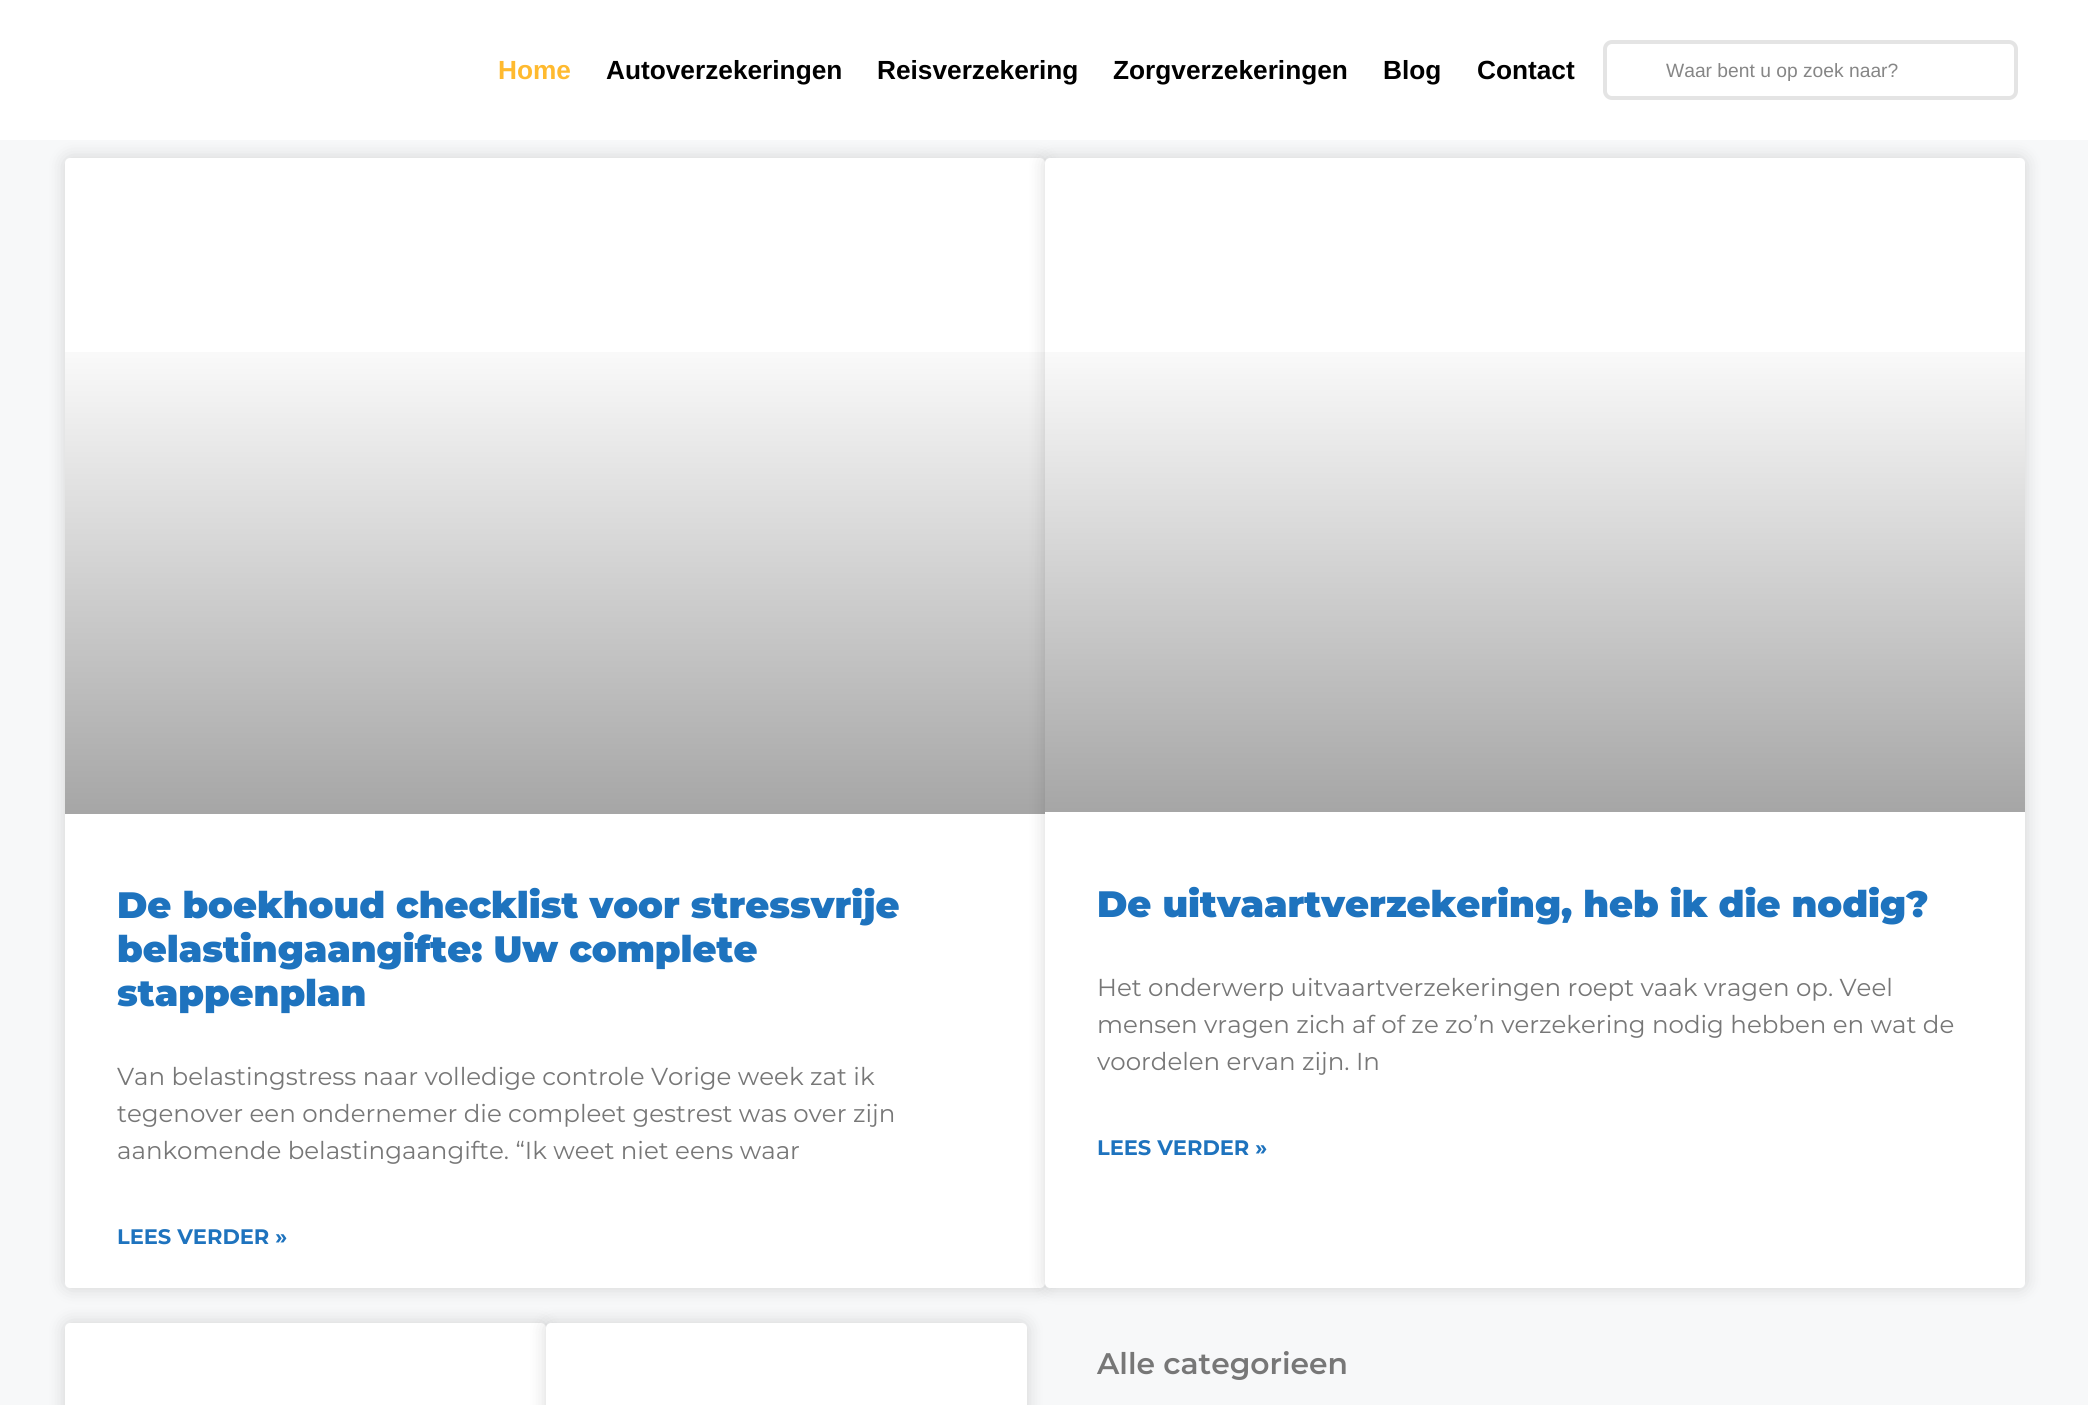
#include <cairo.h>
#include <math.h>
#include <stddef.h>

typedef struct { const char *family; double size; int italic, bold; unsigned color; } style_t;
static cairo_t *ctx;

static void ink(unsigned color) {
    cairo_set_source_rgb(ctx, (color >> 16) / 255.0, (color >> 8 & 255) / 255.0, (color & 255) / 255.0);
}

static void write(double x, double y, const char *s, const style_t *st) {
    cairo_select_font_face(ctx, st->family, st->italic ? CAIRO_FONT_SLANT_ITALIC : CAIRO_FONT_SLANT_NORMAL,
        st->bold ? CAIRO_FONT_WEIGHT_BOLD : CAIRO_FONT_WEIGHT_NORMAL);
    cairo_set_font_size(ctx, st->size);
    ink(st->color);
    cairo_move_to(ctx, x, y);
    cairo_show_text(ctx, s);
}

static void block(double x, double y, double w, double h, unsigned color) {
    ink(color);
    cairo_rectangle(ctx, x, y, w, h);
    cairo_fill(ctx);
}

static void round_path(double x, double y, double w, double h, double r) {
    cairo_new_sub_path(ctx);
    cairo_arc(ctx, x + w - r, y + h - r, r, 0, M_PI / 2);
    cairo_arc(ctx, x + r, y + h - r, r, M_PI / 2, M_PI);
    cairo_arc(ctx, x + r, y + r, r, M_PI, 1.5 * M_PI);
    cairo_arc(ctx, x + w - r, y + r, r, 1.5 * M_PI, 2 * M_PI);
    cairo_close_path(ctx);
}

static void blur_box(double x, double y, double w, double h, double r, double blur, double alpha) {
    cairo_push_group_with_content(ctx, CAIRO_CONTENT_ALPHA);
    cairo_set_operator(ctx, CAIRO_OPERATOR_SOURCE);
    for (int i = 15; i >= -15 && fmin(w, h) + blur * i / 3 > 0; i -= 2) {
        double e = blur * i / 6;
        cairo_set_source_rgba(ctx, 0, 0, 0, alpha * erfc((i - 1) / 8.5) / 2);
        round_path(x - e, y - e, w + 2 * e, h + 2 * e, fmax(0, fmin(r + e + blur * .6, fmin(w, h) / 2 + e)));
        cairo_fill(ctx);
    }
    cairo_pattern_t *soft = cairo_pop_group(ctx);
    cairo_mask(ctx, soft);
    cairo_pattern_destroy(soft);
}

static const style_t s1 = {"Liberation Sans", 26.25, 0, 1, 0xffba2f};
static const style_t s2 = {"Liberation Sans", 26.25, 0, 1, 0x000000};
static const style_t s3 = {"Liberation Sans", 19.25, 0, 0, 0x868686};
static const style_t s4 = {"Montserrat Black", 36.75, 0, 0, 0x1e73be};
static const style_t s5 = {"Montserrat", 24.5, 0, 0, 0x777777};
static const style_t s6 = {"Montserrat", 21, 0, 1, 0x1e73be};
static const style_t s7 = {"Montserrat SemiBold", 29.75, 0, 0, 0x777777};

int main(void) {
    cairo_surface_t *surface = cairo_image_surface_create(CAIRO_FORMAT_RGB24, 2088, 1405);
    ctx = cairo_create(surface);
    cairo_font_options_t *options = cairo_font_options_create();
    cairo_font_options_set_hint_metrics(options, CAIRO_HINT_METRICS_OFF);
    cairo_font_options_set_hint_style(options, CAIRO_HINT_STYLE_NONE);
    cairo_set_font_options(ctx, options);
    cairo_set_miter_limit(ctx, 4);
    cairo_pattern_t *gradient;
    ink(0xf7f8f9);
    cairo_paint(ctx);
    block(0, 0, 2088, 140, 0xffffff);
    write(498, 79, "Home", &s1);
    write(606, 79, "Autoverzekeringen", &s2);
    write(877, 79, "Reisverzekering", &s2);
    write(1113, 79, "Zorgverzekeringen", &s2);
    write(1383, 79, "Blog", &s2);
    write(1477, 79, "Contact", &s2);
    round_path(1605, 42, 411, 56, 7);
    ink(0xe4e4e4);
    cairo_set_line_width(ctx, 4);
    cairo_stroke(ctx);
    write(1666, 77, "Waar bent u op zoek naar?", &s3);
    ink(0x000000);
    blur_box(65, 158, 980, 1130, 5, 9, 0.15);
    ink(0xffffff);
    round_path(65, 158, 980, 1130, 5);
    cairo_fill(ctx);
    gradient = cairo_pattern_create_linear(555, 814, 555, 158);
    cairo_pattern_add_color_stop_rgba(gradient, 0, 0, 0, 0, 0.35);
    cairo_pattern_add_color_stop_rgba(gradient, 0.75, 0, 0, 0, 0);
    cairo_set_source(ctx, gradient);
    cairo_pattern_destroy(gradient);
    cairo_rectangle(ctx, 65, 352, 980, 462);
    cairo_fill(ctx);
    write(117, 918, "De boekhoud checklist voor stressvrije", &s4);
    write(117, 962, "belastingaangifte: Uw complete", &s4);
    write(117, 1006, "stappenplan", &s4);
    write(117, 1085, "Van belastingstress naar volledige controle Vorige week zat ik", &s5);
    write(117, 1122, "tegenover een ondernemer die compleet gestrest was over zijn", &s5);
    write(117, 1159, "aankomende belastingaangifte. “Ik weet niet eens waar", &s5);
    write(117, 1244, "LEES VERDER »", &s6);
    ink(0x000000);
    blur_box(1045, 158, 980, 1130, 5, 9, 0.15);
    ink(0xffffff);
    round_path(1045, 158, 980, 1130, 5);
    cairo_fill(ctx);
    gradient = cairo_pattern_create_linear(1535, 812, 1535, 158);
    cairo_pattern_add_color_stop_rgba(gradient, 0, 0, 0, 0, 0.35);
    cairo_pattern_add_color_stop_rgba(gradient, 0.75, 0, 0, 0, 0);
    cairo_set_source(ctx, gradient);
    cairo_pattern_destroy(gradient);
    cairo_rectangle(ctx, 1045, 352, 980, 460);
    cairo_fill(ctx);
    write(1097, 917, "De uitvaartverzekering, heb ik die nodig?", &s4);
    write(1097, 996, "Het onderwerp uitvaartverzekeringen roept vaak vragen op. Veel", &s5);
    write(1097, 1033, "mensen vragen zich af of ze zo’n verzekering nodig hebben en wat de", &s5);
    write(1097, 1070, "voordelen ervan zijn. In", &s5);
    write(1097, 1155, "LEES VERDER »", &s6);
    ink(0x000000);
    blur_box(65, 1323, 481, 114, 5, 9, 0.15);
    ink(0xffffff);
    round_path(65, 1323, 481, 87, 5);
    cairo_fill(ctx);
    ink(0x000000);
    blur_box(546, 1323, 481, 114, 5, 9, 0.15);
    ink(0xffffff);
    round_path(546, 1323, 481, 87, 5);
    cairo_fill(ctx);
    write(1097, 1374, "Alle categorieen", &s7);
    cairo_surface_write_to_png(surface, "screenshot.png");
    cairo_font_options_destroy(options);
    cairo_destroy(ctx);
    cairo_surface_destroy(surface);
    return 0;
}
